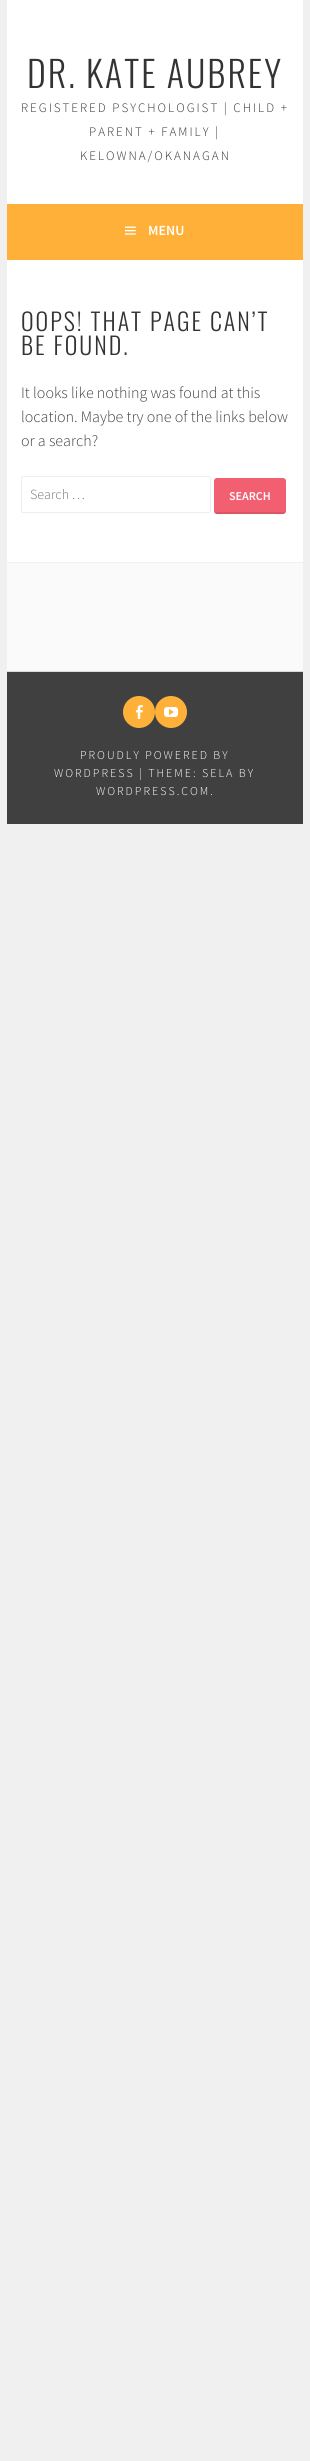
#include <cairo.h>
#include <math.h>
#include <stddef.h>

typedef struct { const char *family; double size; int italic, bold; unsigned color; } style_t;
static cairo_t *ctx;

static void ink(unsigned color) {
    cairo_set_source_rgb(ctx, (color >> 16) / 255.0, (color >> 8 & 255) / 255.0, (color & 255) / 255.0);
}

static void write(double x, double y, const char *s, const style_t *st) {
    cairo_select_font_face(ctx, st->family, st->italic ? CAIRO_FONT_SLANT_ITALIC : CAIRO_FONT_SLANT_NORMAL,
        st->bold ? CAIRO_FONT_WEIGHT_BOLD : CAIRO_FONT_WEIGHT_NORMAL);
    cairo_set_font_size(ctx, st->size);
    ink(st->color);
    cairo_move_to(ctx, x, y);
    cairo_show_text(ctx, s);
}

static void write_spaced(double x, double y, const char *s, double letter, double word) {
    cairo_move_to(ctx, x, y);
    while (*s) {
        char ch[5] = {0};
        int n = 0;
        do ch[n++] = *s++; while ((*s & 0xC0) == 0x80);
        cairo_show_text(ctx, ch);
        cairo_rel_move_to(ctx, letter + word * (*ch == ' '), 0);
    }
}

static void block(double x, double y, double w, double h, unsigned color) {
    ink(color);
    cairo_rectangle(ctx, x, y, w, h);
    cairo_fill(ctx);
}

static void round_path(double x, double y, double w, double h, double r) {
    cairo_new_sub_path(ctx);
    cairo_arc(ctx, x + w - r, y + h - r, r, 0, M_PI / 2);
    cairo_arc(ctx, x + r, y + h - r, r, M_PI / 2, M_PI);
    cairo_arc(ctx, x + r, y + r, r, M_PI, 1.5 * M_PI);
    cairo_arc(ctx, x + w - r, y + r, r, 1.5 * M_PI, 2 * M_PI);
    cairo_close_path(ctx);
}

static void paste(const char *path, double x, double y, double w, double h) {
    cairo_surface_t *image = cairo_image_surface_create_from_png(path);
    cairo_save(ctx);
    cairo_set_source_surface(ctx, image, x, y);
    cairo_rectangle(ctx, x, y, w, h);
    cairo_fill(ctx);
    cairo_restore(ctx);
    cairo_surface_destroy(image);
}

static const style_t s1 = {"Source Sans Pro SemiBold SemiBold", 14, 0, 0, 0xffffff};
static const style_t s2 = {"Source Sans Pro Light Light", 16, 0, 0, 0x404040};
static const style_t s3 = {"Source Sans Pro Light Light", 14, 0, 0, 0x757575};
static const style_t s4 = {"Source Sans Pro SemiBold SemiBold", 12, 0, 0, 0xffffff};

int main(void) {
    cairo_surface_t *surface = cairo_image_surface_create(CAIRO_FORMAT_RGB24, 310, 2461);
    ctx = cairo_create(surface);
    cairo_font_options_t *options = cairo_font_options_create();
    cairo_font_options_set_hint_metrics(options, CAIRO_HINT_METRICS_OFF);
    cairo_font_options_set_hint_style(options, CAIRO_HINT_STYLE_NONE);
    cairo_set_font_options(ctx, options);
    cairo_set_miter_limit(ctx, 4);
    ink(0xf0f0f0);
    cairo_paint(ctx);
    block(7, 0, 296, 204, 0xffffff);
    cairo_select_font_face(ctx, "Oswald Light", CAIRO_FONT_SLANT_NORMAL, CAIRO_FONT_WEIGHT_NORMAL);
    cairo_set_font_size(ctx, 36);
    ink(0x333333);
    write_spaced(27, 88, "DR. KATE AUBREY", 2, 0);
    cairo_select_font_face(ctx, "Source Sans Pro Light Light", CAIRO_FONT_SLANT_NORMAL, CAIRO_FONT_WEIGHT_NORMAL);
    cairo_set_font_size(ctx, 13);
    write_spaced(21, 112, "REGISTERED PSYCHOLOGIST | CHILD +", 2, 0);
    write_spaced(89, 136, "PARENT + FAMILY |", 2, 0);
    write_spaced(80, 160, "KELOWNA/OKANAGAN", 2, 0);
    block(7, 204, 296, 56, 0xffb039);
    paste("pic1.png", 125, 226, 11, 9);
    write(148, 235, "MENU", &s1);
    block(7, 260, 296, 302, 0xffffff);
    cairo_select_font_face(ctx, "Oswald Light", CAIRO_FONT_SLANT_NORMAL, CAIRO_FONT_WEIGHT_NORMAL);
    cairo_set_font_size(ctx, 24);
    ink(0x333333);
    write_spaced(21, 331, "OOPS! THAT PAGE CAN’T", 2, 0);
    write_spaced(21, 355, "BE FOUND.", 2, 0);
    write(21, 398, "It looks like nothing was found at this", &s2);
    write(21, 422, "location. Maybe try one of the links below", &s2);
    write(21, 446, "or a search?", &s2);
    round_path(21.5, 476.5, 189, 36, 1.5);
    ink(0xeeeeee);
    cairo_set_line_width(ctx, 1);
    cairo_stroke(ctx);
    write(30, 499, "Search …", &s3);
    ink(0xf25f70);
    round_path(214, 478, 72, 36, 3);
    cairo_fill(ctx);
    cairo_set_source_rgba(ctx, 0, 0, 0, 0.1);
    cairo_new_path(ctx);
    cairo_move_to(ctx, 214, 509);
    cairo_curve_to(ctx, 214, 517, 220, 514, 228, 514);
    cairo_line_to(ctx, 272, 514);
    cairo_curve_to(ctx, 280, 514, 286, 517, 286, 509);
    cairo_curve_to(ctx, 286, 511, 285, 512, 283, 512);
    cairo_line_to(ctx, 217, 512);
    cairo_curve_to(ctx, 215, 512, 214, 511, 214, 509);
    cairo_close_path(ctx);
    cairo_fill(ctx);
    write(229, 500, "SEARCH", &s4);
    block(7, 563, 296, 108, 0xfafafa);
    block(7, 672, 296, 152, 0x404040);
    block(7, 671, 296, 1, 0xd9d9d9);
    ink(0xffb039);
    cairo_new_path(ctx);
    cairo_arc(ctx, 139, 712, 16, 0, 2 * M_PI);
    cairo_fill(ctx);
    paste("pic2.png", 136, 705, 7, 14);
    cairo_arc(ctx, 171, 712, 16, 0, 2 * M_PI);
    cairo_fill(ctx);
    paste("pic3.png", 164, 707, 14, 10);
    cairo_select_font_face(ctx, "Source Sans Pro Light Light", CAIRO_FONT_SLANT_NORMAL, CAIRO_FONT_WEIGHT_NORMAL);
    ink(0xffffff);
    write_spaced(80, 759, "PROUDLY POWERED BY", 2, 0);
    write_spaced(54, 777, "WORDPRESS | THEME: SELA BY", 2, 0);
    write_spaced(96, 795, "WORDPRESS.COM.", 2, 0);
    cairo_surface_write_to_png(surface, "screenshot.png");
    cairo_font_options_destroy(options);
    cairo_destroy(ctx);
    cairo_surface_destroy(surface);
    return 0;
}
